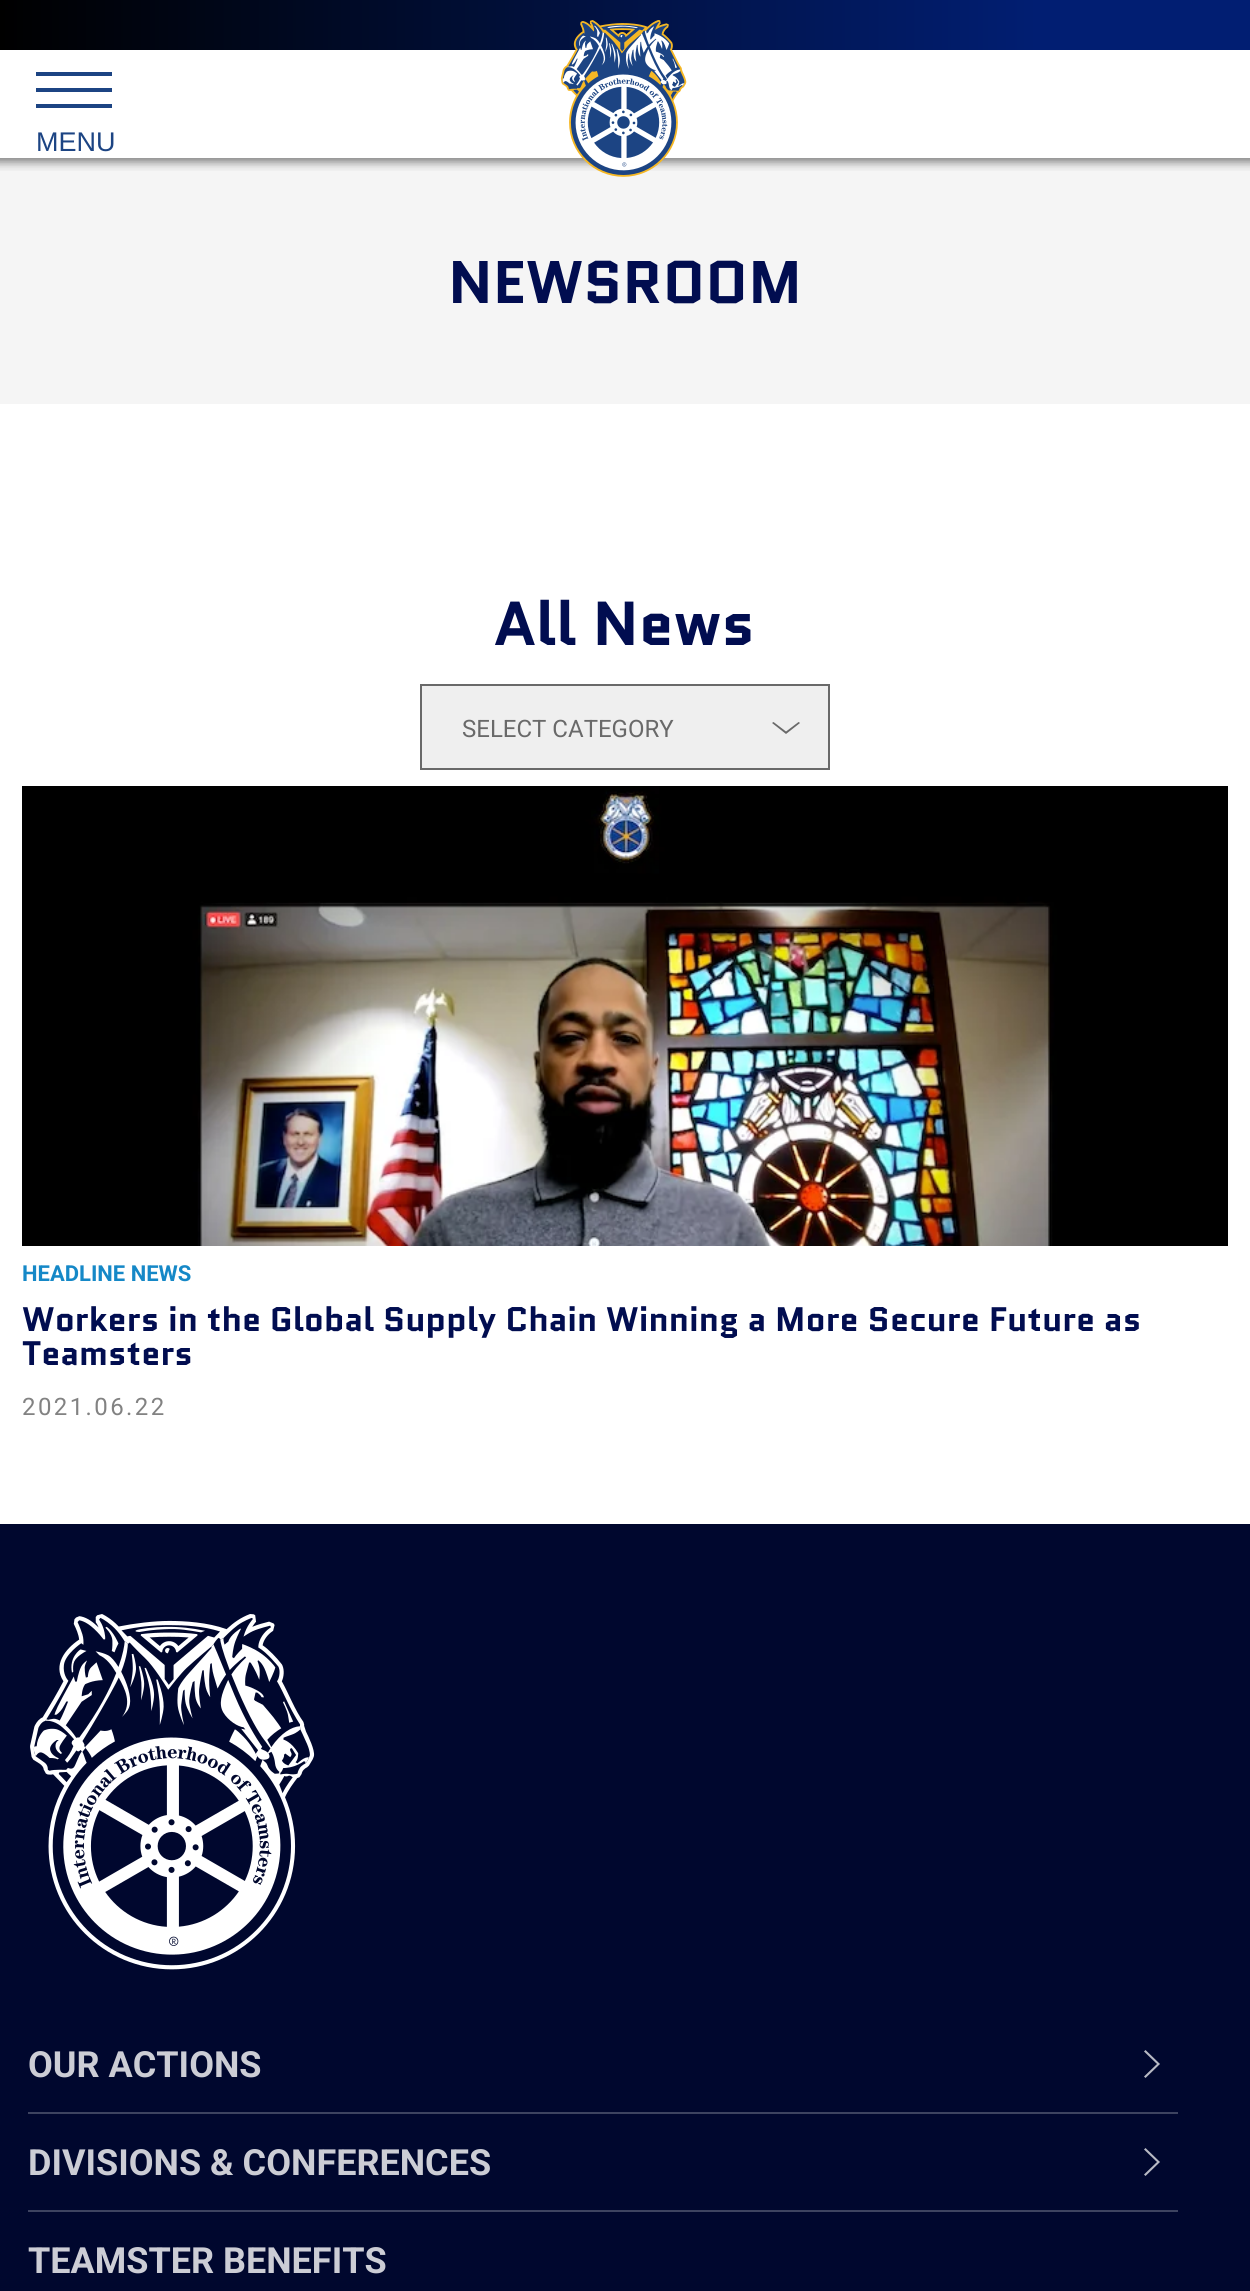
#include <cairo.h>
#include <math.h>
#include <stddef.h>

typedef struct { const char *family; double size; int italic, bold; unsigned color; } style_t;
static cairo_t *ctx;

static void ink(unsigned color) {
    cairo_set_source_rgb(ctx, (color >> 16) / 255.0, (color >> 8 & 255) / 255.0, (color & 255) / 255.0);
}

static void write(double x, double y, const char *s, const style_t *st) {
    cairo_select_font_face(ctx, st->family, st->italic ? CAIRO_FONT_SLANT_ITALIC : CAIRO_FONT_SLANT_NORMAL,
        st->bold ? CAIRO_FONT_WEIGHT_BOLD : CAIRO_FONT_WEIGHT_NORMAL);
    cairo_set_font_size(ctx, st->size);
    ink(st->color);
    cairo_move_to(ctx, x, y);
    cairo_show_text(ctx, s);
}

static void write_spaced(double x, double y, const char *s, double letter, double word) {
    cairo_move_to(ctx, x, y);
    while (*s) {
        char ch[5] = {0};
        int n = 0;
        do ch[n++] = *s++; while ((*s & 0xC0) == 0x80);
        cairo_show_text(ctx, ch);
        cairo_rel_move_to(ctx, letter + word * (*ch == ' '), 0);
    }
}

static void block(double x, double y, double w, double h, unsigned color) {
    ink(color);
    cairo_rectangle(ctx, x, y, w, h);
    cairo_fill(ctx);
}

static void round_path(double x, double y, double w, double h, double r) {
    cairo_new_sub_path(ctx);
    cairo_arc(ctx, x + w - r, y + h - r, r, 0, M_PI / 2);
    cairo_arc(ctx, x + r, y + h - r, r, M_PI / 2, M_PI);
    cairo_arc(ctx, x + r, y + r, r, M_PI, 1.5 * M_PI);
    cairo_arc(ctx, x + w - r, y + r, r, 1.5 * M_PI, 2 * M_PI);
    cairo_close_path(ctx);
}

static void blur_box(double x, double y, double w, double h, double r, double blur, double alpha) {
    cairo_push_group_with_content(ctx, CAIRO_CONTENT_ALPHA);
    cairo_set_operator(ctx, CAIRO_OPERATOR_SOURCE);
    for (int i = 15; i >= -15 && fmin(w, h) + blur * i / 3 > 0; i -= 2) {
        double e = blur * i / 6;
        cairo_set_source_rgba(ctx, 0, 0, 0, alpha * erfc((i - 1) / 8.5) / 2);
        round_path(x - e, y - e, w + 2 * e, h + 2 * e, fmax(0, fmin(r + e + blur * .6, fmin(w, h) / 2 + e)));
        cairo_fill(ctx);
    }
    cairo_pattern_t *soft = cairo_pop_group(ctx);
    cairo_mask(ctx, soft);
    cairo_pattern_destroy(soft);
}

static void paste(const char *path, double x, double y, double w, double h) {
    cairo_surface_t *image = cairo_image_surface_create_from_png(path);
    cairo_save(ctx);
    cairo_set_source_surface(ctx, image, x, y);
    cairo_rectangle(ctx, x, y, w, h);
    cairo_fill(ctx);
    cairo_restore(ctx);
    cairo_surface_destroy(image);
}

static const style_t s1 = {"Liberation Sans", 27, 0, 0, 0x1c4483};
static const style_t s2 = {"Quantico", 60, 0, 1, 0x010d50};
static const style_t s3 = {"Quantico", 62, 0, 1, 0x010d50};
static const style_t s4 = {"Roboto", 24, 0, 0, 0x696969};
static const style_t s5 = {"Roboto", 22, 0, 1, 0x1588c7};
static const style_t s6 = {"Quantico", 34, 0, 1, 0x010d50};
static const style_t s7 = {"Roboto", 36, 0, 1, 0xcccdd5};

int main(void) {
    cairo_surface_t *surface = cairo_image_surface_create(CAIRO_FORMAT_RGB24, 1250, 2291);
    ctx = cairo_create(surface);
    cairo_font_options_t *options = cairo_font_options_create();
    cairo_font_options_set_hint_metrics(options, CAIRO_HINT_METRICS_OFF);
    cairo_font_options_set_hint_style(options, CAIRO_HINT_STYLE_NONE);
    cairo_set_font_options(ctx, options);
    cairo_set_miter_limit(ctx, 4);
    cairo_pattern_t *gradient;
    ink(0xffffff);
    cairo_paint(ctx);
    block(0, 158, 1250, 246, 0xf5f5f5);
    cairo_save(ctx);
    cairo_rectangle(ctx, 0, 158, 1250, 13);
    cairo_clip(ctx);
    ink(0x000000);
    blur_box(-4, -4, 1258, 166, 0, 5, 0.5);
    cairo_restore(ctx);
    gradient = cairo_pattern_create_linear(0, 25, 1250, 25);
    cairo_pattern_add_color_stop_rgba(gradient, 0, 0, 0, 0, 1);
    cairo_pattern_add_color_stop_rgba(gradient, 0.83, 0.004, 0.118, 0.447, 1);
    cairo_set_source(ctx, gradient);
    cairo_pattern_destroy(gradient);
    cairo_rectangle(ctx, 0, 0, 1250, 50);
    cairo_fill(ctx);
    block(36, 72, 76, 4, 0x1c4483);
    block(36, 88, 76, 4, 0x1c4483);
    block(36, 104, 76, 4, 0x1c4483);
    write(36, 151, "MENU", &s1);
    paste("pic1.png", 560, 20, 127, 157);
    write(448, 303, "NEWSROOM", &s2);
    write(494, 645, "All News", &s3);
    block(422, 686, 406, 82, 0xefefef);
    ink(0x696969);
    cairo_set_fill_rule(ctx, CAIRO_FILL_RULE_EVEN_ODD);
    cairo_new_path(ctx);
    cairo_move_to(ctx, 772, 723);
    cairo_line_to(ctx, 773.5, 722);
    cairo_line_to(ctx, 786, 731.5);
    cairo_line_to(ctx, 798.5, 722);
    cairo_line_to(ctx, 800, 723);
    cairo_line_to(ctx, 786, 734);
    cairo_close_path(ctx);
    cairo_fill(ctx);
    cairo_rectangle(ctx, 421, 685, 408, 84);
    cairo_stroke(ctx);
    write(462, 737, "SELECT CATEGORY", &s4);
    paste("pic2.png", 22, 786, 1206, 460);
    write(22, 1281, "HEADLINE NEWS", &s5);
    write(22, 1331, "Workers in the Global Supply Chain Winning a More Secure Future as", &s6);
    write(22, 1365, "Teamsters", &s6);
    cairo_select_font_face(ctx, "Roboto", CAIRO_FONT_SLANT_NORMAL, CAIRO_FONT_WEIGHT_NORMAL);
    cairo_set_font_size(ctx, 24);
    ink(0x828282);
    write_spaced(22, 1415, "2021.06.22", 2.4, 0);
    block(0, 1524, 1250, 767, 0x00072e);
    paste("pic3.png", 30, 1614, 285, 356);
    block(28, 2112, 1150, 2, 0x3d4360);
    write(28, 2077, "OUR ACTIONS", &s7);
    ink(0xb8bac4);
    cairo_set_fill_rule(ctx, CAIRO_FILL_RULE_WINDING);
    cairo_new_path(ctx);
    cairo_move_to(ctx, 1145.5, 2078);
    cairo_line_to(ctx, 1144, 2076.5);
    cairo_line_to(ctx, 1157, 2064);
    cairo_line_to(ctx, 1144, 2051.5);
    cairo_line_to(ctx, 1145.5, 2050);
    cairo_line_to(ctx, 1160, 2064);
    cairo_close_path(ctx);
    cairo_fill(ctx);
    block(28, 2210, 1150, 2, 0x3d4360);
    write(28, 2175, "DIVISIONS & CONFERENCES", &s7);
    ink(0xb8bac4);
    cairo_new_path(ctx);
    cairo_move_to(ctx, 1145.5, 2176);
    cairo_line_to(ctx, 1144, 2174.5);
    cairo_line_to(ctx, 1157, 2162);
    cairo_line_to(ctx, 1144, 2149.5);
    cairo_line_to(ctx, 1145.5, 2148);
    cairo_line_to(ctx, 1160, 2162);
    cairo_close_path(ctx);
    cairo_fill(ctx);
    write(28, 2273, "TEAMSTER BENEFITS", &s7);
    cairo_surface_write_to_png(surface, "screenshot.png");
    cairo_font_options_destroy(options);
    cairo_destroy(ctx);
    cairo_surface_destroy(surface);
    return 0;
}
